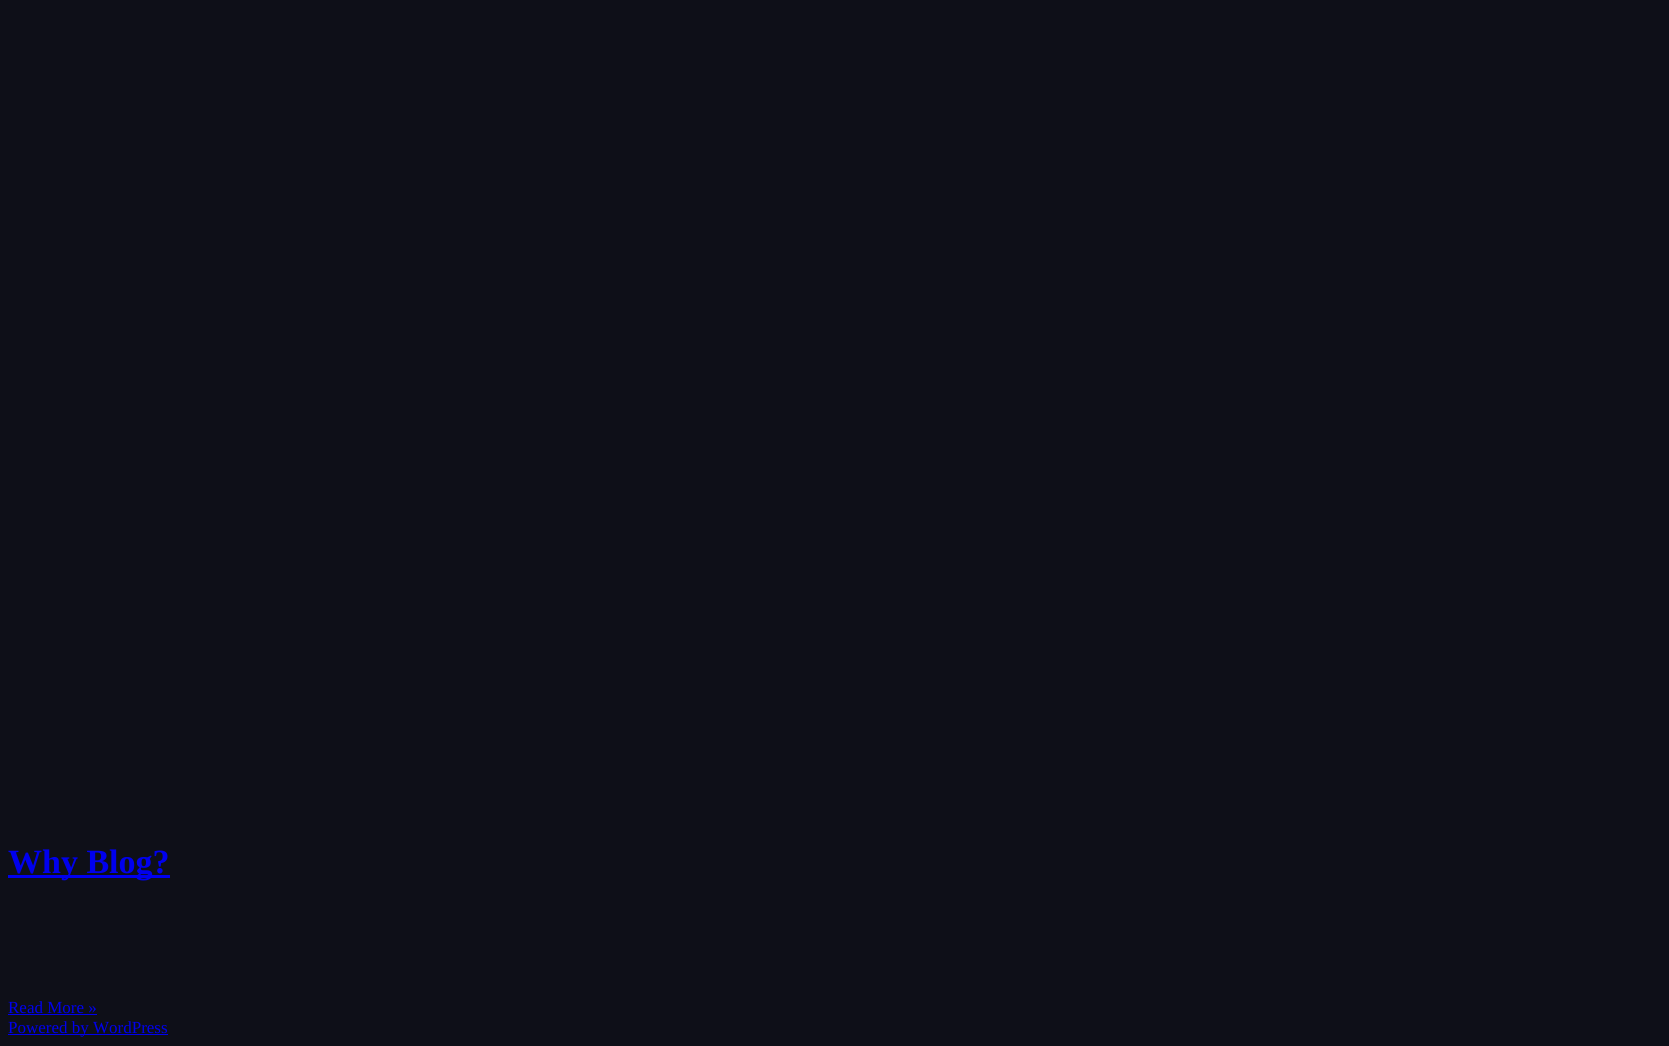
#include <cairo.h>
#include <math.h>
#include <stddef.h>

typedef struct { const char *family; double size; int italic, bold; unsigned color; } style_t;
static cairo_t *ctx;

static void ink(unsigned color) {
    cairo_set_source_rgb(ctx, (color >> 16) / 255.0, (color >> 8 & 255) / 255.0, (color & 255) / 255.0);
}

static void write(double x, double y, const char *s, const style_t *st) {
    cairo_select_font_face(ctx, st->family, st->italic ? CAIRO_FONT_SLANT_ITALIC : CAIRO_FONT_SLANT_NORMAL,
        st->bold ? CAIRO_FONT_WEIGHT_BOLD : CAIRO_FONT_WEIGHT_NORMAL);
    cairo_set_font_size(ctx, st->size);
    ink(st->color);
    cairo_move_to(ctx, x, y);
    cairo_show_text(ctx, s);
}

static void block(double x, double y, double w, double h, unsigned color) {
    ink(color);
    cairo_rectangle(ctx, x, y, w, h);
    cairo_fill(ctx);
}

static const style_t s1 = {"Liberation Serif", 34, 0, 1, 0x0000ee};
static const style_t s2 = {"Liberation Serif", 17, 0, 0, 0x0000ee};

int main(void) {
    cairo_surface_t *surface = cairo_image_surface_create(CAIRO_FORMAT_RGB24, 1669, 1046);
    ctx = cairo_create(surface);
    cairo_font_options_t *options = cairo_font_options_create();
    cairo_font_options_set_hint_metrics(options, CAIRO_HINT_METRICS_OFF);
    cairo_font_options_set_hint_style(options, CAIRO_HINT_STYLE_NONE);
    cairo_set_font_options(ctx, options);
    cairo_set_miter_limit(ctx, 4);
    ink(0x0e0f18);
    cairo_paint(ctx);
    block(8, 875, 162, 3, 0x0000ee);
    write(8, 873, "Why Blog?", &s1);
    write(8, 1013, "Read More »", &s2);
    block(8, 1014, 89, 1, 0x0000ee);
    block(8, 1034, 160, 1, 0x0000ee);
    write(8, 1033, "Powered by WordPress", &s2);
    cairo_surface_write_to_png(surface, "screenshot.png");
    cairo_font_options_destroy(options);
    cairo_destroy(ctx);
    cairo_surface_destroy(surface);
    return 0;
}
